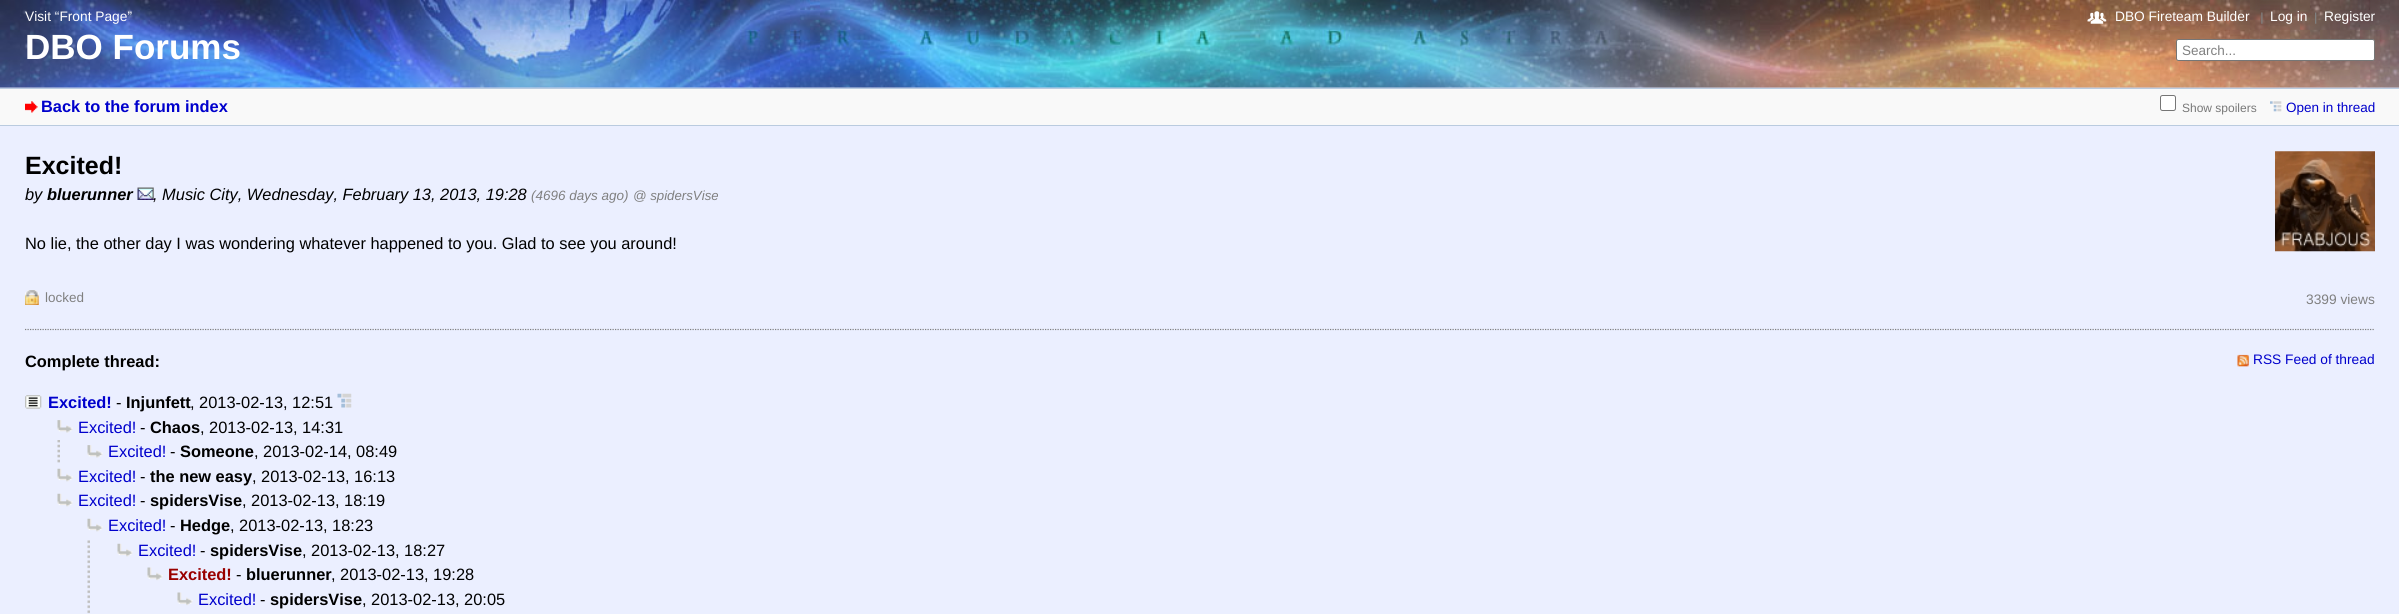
#include <cairo.h>
#include <math.h>
#include <stddef.h>

typedef struct { const char *family; double size; int italic, bold; unsigned color; } style_t;
static cairo_t *ctx;

static void ink(unsigned color) {
    cairo_set_source_rgb(ctx, (color >> 16) / 255.0, (color >> 8 & 255) / 255.0, (color & 255) / 255.0);
}

static void write(double x, double y, const char *s, const style_t *st) {
    cairo_select_font_face(ctx, st->family, st->italic ? CAIRO_FONT_SLANT_ITALIC : CAIRO_FONT_SLANT_NORMAL,
        st->bold ? CAIRO_FONT_WEIGHT_BOLD : CAIRO_FONT_WEIGHT_NORMAL);
    cairo_set_font_size(ctx, st->size);
    ink(st->color);
    cairo_move_to(ctx, x, y);
    cairo_show_text(ctx, s);
}

static void block(double x, double y, double w, double h, unsigned color) {
    ink(color);
    cairo_rectangle(ctx, x, y, w, h);
    cairo_fill(ctx);
}

static void round_path(double x, double y, double w, double h, double r) {
    cairo_new_sub_path(ctx);
    cairo_arc(ctx, x + w - r, y + h - r, r, 0, M_PI / 2);
    cairo_arc(ctx, x + r, y + h - r, r, M_PI / 2, M_PI);
    cairo_arc(ctx, x + r, y + r, r, M_PI, 1.5 * M_PI);
    cairo_arc(ctx, x + w - r, y + r, r, 1.5 * M_PI, 2 * M_PI);
    cairo_close_path(ctx);
}

static void paste(const char *path, double x, double y, double w, double h) {
    cairo_surface_t *image = cairo_image_surface_create_from_png(path);
    cairo_save(ctx);
    cairo_set_source_surface(ctx, image, x, y);
    cairo_rectangle(ctx, x, y, w, h);
    cairo_fill(ctx);
    cairo_restore(ctx);
    cairo_surface_destroy(image);
}

static const style_t s1 = {"Liberation Sans", 13.75, 0, 0, 0xffffff};
static const style_t s2 = {"Liberation Sans", 35, 0, 1, 0xffffff};
static const style_t s3 = {"Liberation Sans", 13.5, 0, 0, 0x808080};
static const style_t s4 = {"Liberation Sans", 16.4, 0, 1, 0x0000cc};
static const style_t s5 = {"Liberation Sans", 12, 0, 0, 0x787878};
static const style_t s6 = {"Liberation Sans", 13.5, 0, 0, 0x0000cc};
static const style_t s7 = {"Liberation Sans", 25, 0, 1, 0x000000};
static const style_t s8 = {"Liberation Sans", 16.4, 1, 0, 0x000000};
static const style_t s9 = {"Liberation Sans", 16.4, 1, 1, 0x000000};
static const style_t s10 = {"Liberation Sans", 13.5, 1, 0, 0x808080};
static const style_t s11 = {"Liberation Sans", 13.25, 1, 0, 0x808080};
static const style_t s12 = {"Liberation Sans", 16.4, 0, 0, 0x000000};
static const style_t s13 = {"Liberation Sans", 13.75, 0, 0, 0x808080};
static const style_t s14 = {"Liberation Sans", 16.4, 0, 1, 0x000000};
static const style_t s15 = {"Liberation Sans", 13.75, 0, 0, 0x0000cc};
static const style_t s16 = {"Liberation Sans", 16.4, 0, 0, 0x0000cc};
static const style_t s17 = {"Liberation Sans", 16.4, 0, 1, 0x990000};

int main(void) {
    cairo_surface_t *surface = cairo_image_surface_create(CAIRO_FORMAT_RGB24, 2399, 614);
    ctx = cairo_create(surface);
    cairo_font_options_t *options = cairo_font_options_create();
    cairo_font_options_set_hint_metrics(options, CAIRO_HINT_METRICS_OFF);
    cairo_font_options_set_hint_style(options, CAIRO_HINT_STYLE_NONE);
    cairo_set_font_options(ctx, options);
    cairo_set_miter_limit(ctx, 4);
    ink(0xebefff);
    cairo_paint(ctx);
    block(0, 87, 2399, 1, 0xcfd5ed);
    paste("pic1.png", 0, 0, 2399, 88);
    write(25, 21, "Visit “Front Page”", &s1);
    write(25, 59, "DBO Forums", &s2);
    paste("pic2.png", 2087, 11, 20, 13);
    write(2115, 21, "DBO Fireteam Builder", &s1);
    paste("pic3.png", 2261, 12, 2, 12);
    write(2270, 21, "Log in", &s1);
    paste("pic4.png", 2315, 12, 2, 12);
    write(2324, 21, "Register", &s1);
    round_path(2176.5, 39.5, 198, 21, 2);
    cairo_fill_preserve(ctx);
    ink(0x767676);
    cairo_set_line_width(ctx, 1);
    cairo_stroke(ctx);
    write(2182, 55, "Search...", &s3);
    block(0, 89, 2399, 36, 0xf9f9f9);
    block(0, 88, 2399, 1, 0xbacbdf);
    block(0, 125, 2399, 1, 0xbacbdf);
    paste("pic5.png", 25, 101, 13, 12);
    write(41, 112, "Back to the forum index", &s4);
    ink(0xffffff);
    round_path(2160.5, 95.5, 15, 15, 2);
    cairo_fill_preserve(ctx);
    ink(0x767676);
    cairo_stroke(ctx);
    write(2182, 112, "Show spoilers", &s5);
    paste("pic6.png", 2270, 101, 12, 11);
    write(2286, 112, "Open in thread", &s6);
    write(25, 174, "Excited!", &s7);
    paste("pic7.png", 2275, 151, 100, 101);
    write(25, 200, "by", &s8);
    write(47, 200, "bluerunner", &s9);
    paste("pic8.png", 137, 187, 17, 13);
    write(153, 200, ", Music City, Wednesday, February 13, 2013, 19:28", &s8);
    write(531, 200, "(4696 days ago)", &s10);
    write(633, 200, "@ spidersVise", &s11);
    write(25, 249, "No lie, the other day I was wondering whatever happened to you. Glad to see you around!", &s12);
    paste("pic9.png", 25, 290, 14, 15);
    write(45, 302, "locked", &s3);
    write(2306, 304, "3399 views", &s13);
    cairo_new_path(ctx);
    cairo_move_to(ctx, 25, 329.5);
    cairo_line_to(ctx, 2375, 329.5);
    cairo_set_line_width(ctx, 1.2);
    cairo_set_dash(ctx, (double[]){1.25, 1.25}, 2, 0);
    cairo_stroke(ctx);
    write(25, 367, "Complete thread:", &s14);
    paste("pic10.png", 2237, 354, 12, 13);
    write(2253, 364, "RSS Feed of thread", &s15);
    paste("pic11.png", 25, 395, 17, 14);
    write(48, 408, "Excited!", &s4);
    write(116, 408, "-", &s12);
    write(126, 408, "Injunfett", &s14);
    write(190, 408, ", 2013-02-13, 12:51", &s12);
    paste("pic12.png", 337, 393, 15, 15);
    paste("pic13.png", 57, 420, 16, 13);
    write(78, 433, "Excited!", &s16);
    write(140, 433, "-", &s12);
    write(150, 433, "Chaos", &s14);
    write(200, 433, ", 2013-02-13, 14:31", &s12);
    paste("pic14.png", 57, 440, 3, 23);
    paste("pic15.png", 87, 445, 16, 13);
    write(108, 457, "Excited!", &s16);
    write(170, 457, "-", &s12);
    write(180, 457, "Someone", &s14);
    write(254, 457, ", 2013-02-14, 08:49", &s12);
    paste("pic16.png", 57, 468, 16, 14);
    write(78, 482, "Excited!", &s16);
    write(140, 482, "-", &s12);
    write(150, 482, "the new easy", &s14);
    write(252, 482, ", 2013-02-13, 16:13", &s12);
    paste("pic16.png", 57, 493, 16, 14);
    write(78, 506, "Excited!", &s16);
    write(140, 506, "-", &s12);
    write(150, 506, "spidersVise", &s14);
    write(242, 506, ", 2013-02-13, 18:19", &s12);
    paste("pic17.png", 87, 518, 16, 14);
    write(108, 531, "Excited!", &s16);
    write(170, 531, "-", &s12);
    write(180, 531, "Hedge", &s14);
    write(230, 531, ", 2013-02-13, 18:23", &s12);
    paste("pic18.png", 87, 540, 3, 74);
    paste("pic17.png", 117, 543, 16, 14);
    write(138, 556, "Excited!", &s16);
    write(200, 556, "-", &s12);
    write(210, 556, "spidersVise", &s14);
    write(302, 556, ", 2013-02-13, 18:27", &s12);
    paste("pic19.png", 147, 567, 16, 14);
    write(168, 580, "Excited!", &s17);
    write(236, 580, "-", &s12);
    write(246, 580, "bluerunner", &s14);
    write(331, 580, ", 2013-02-13, 19:28", &s12);
    paste("pic19.png", 177, 592, 16, 14);
    write(198, 605, "Excited!", &s16);
    write(260, 605, "-", &s12);
    write(270, 605, "spidersVise", &s14);
    write(362, 605, ", 2013-02-13, 20:05", &s12);
    cairo_surface_write_to_png(surface, "screenshot.png");
    cairo_font_options_destroy(options);
    cairo_destroy(ctx);
    cairo_surface_destroy(surface);
    return 0;
}
